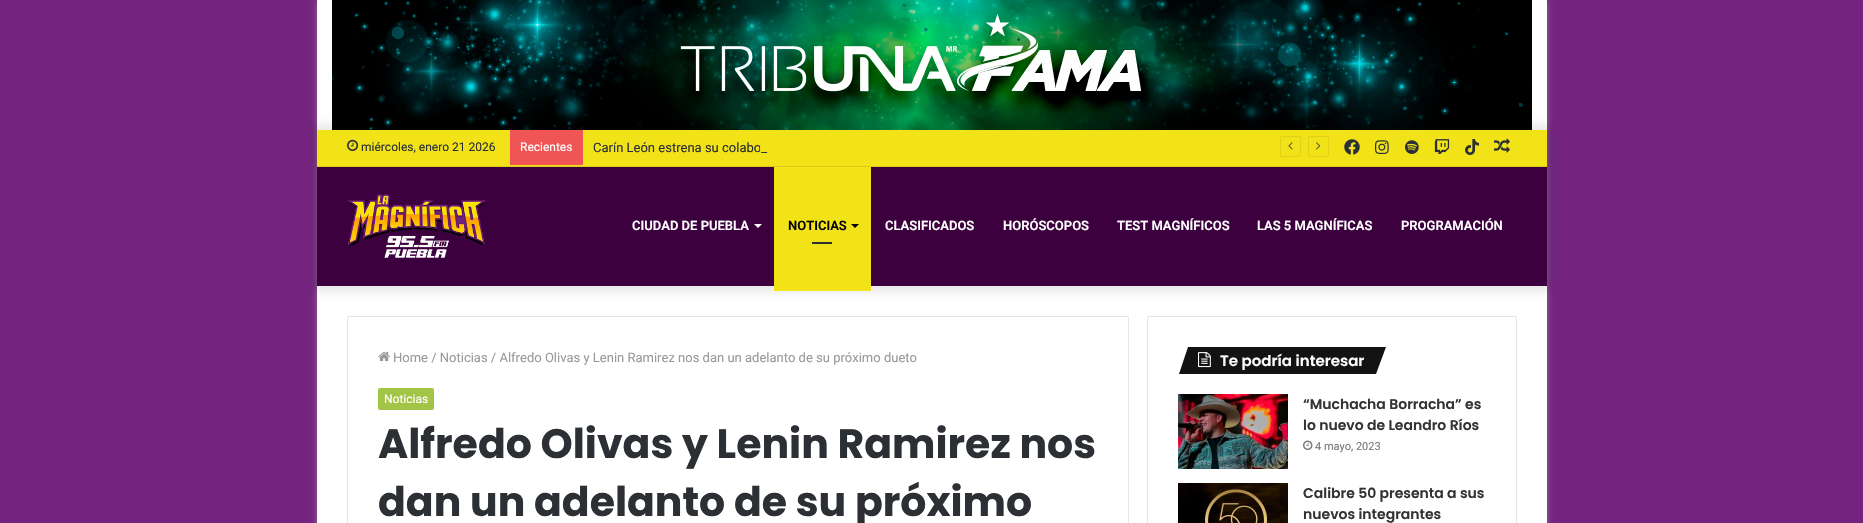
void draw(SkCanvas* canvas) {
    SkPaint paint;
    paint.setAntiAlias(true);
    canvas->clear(0xFF74237F);
    paint.setColor(0x80ABABAB);
    paint.setMaskFilter(SkMaskFilter::MakeBlur(kNormal_SkBlurStyle, 3.5f));
    canvas->drawRect(SkRect::MakeXYWH(317, 1, 1230, 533), paint);
    paint.setMaskFilter(nullptr);
    paint.setColor(0xFFFFFFFF);
    canvas->drawRect(SkRect::MakeXYWH(317, 0, 1230, 523), paint);
    canvas->drawImageRect(SkImages::DeferredFromEncodedData(SkData::MakeFromFileName("img1.png")), SkRect::MakeXYWH(332, 0, 1200, 130), SkSamplingOptions());
    paint.setColor(0x1A000000);
    paint.setMaskFilter(SkMaskFilter::MakeBlur(kNormal_SkBlurStyle, 5));
    canvas->drawRect(SkRect::MakeXYWH(312, 125, 1240, 166), paint);
    paint.setMaskFilter(nullptr);
    paint.setColor(0xFF3B003D);
    canvas->drawRect(SkRect::MakeXYWH(317, 167, 1230, 119), paint);
    paint.setColor(0xFFF1E318);
    canvas->drawRect(SkRect::MakeXYWH(317, 130, 1230, 36), paint);
    paint.setColor(0xFFD9CC16);
    canvas->drawRect(SkRect::MakeXYWH(317, 166, 1230, 1), paint);
    canvas->drawImageRect(SkImages::DeferredFromEncodedData(SkData::MakeFromFileName("img2.png")), SkRect::MakeXYWH(347, 139, 12, 12), SkSamplingOptions());
    SkFont font1(fontMgr->matchFamilyStyle("Roboto", SkFontStyle::Normal()), 12);
    font1.setSubpixel(true);
    paint.setColor(0xFF2C2F34);
    canvas->drawString("miércoles, enero 21 2026", 361, 151, font1, paint);
    paint.setColor(0xFFF05555);
    canvas->drawRect(SkRect::MakeXYWH(510, 130, 73, 35), paint);
    paint.setColor(0xFFFFFFFF);
    canvas->drawString("Recientes", 520, 151, font1, paint);
    SkFont font2(fontMgr->matchFamilyStyle("Roboto", SkFontStyle::Normal()), 13);
    font2.setSubpixel(true);
    paint.setColor(0xFF2C2F34);
    canvas->drawString("Carín León estrena su colabo_", 593, 152, font2, paint);
    paint.setColor(0xFFF1E318);
    canvas->drawRect(SkRect::MakeXYWH(760, 147, 1, 3), paint);
    paint.setStyle(SkPaint::kStroke_Style);
    paint.setStrokeWidth(1);
    paint.setColor(0xFFDED116);
    canvas->drawRoundRect(SkRect::MakeXYWH(1280.5f, 136.5f, 20, 20), 1.5f, 1.5f, paint);
    canvas->drawImageRect(SkImages::DeferredFromEncodedData(SkData::MakeFromFileName("img3.png")), SkRect::MakeXYWH(1288, 142, 5, 8), SkSamplingOptions());
    canvas->drawRoundRect(SkRect::MakeXYWH(1308.5f, 136.5f, 20, 20), 1.5f, 1.5f, paint);
    canvas->drawImageRect(SkImages::DeferredFromEncodedData(SkData::MakeFromFileName("img4.png")), SkRect::MakeXYWH(1316, 142, 5, 8), SkSamplingOptions());
    canvas->drawImageRect(SkImages::DeferredFromEncodedData(SkData::MakeFromFileName("img5.png")), SkRect::MakeXYWH(1344, 139, 16, 16), SkSamplingOptions());
    canvas->drawImageRect(SkImages::DeferredFromEncodedData(SkData::MakeFromFileName("img6.png")), SkRect::MakeXYWH(1375, 140, 14, 14), SkSamplingOptions());
    canvas->drawImageRect(SkImages::DeferredFromEncodedData(SkData::MakeFromFileName("img7.png")), SkRect::MakeXYWH(1405, 140, 14, 14), SkSamplingOptions());
    canvas->drawImageRect(SkImages::DeferredFromEncodedData(SkData::MakeFromFileName("img8.png")), SkRect::MakeXYWH(1434, 139, 16, 15), SkSamplingOptions());
    canvas->drawImageRect(SkImages::DeferredFromEncodedData(SkData::MakeFromFileName("img9.png")), SkRect::MakeXYWH(1465, 139, 14, 16), SkSamplingOptions());
    canvas->drawImageRect(SkImages::DeferredFromEncodedData(SkData::MakeFromFileName("img10.png")), SkRect::MakeXYWH(1494, 138, 16, 15), SkSamplingOptions());
    canvas->drawImageRect(SkImages::DeferredFromEncodedData(SkData::MakeFromFileName("img11.png")), SkRect::MakeXYWH(347, 194, 139, 64), SkSamplingOptions());
    SkFont font3(fontMgr->matchFamilyStyle("Roboto", SkFontStyle(600, SkFontStyle::kNormal_Width, SkFontStyle::kUpright_Slant)), 13);
    font3.setSubpixel(true);
    paint.setStyle(SkPaint::kFill_Style);
    paint.setColor(0xFFFFFFFF);
    canvas->drawString("CIUDAD DE PUEBLA", 632, 230, font3, paint);
    canvas->drawPath(SkPathBuilder().moveTo(754, 224).lineTo(762, 224).lineTo(758, 228).close().detach(), paint);
    paint.setColor(0xFFF1E318);
    canvas->drawRect(SkRect::MakeXYWH(774, 167, 97, 124), paint);
    paint.setColor(0xFF000000);
    canvas->drawString("NOTICIAS", 788, 230, font3, paint);
    canvas->drawPath(SkPathBuilder().moveTo(851, 224).lineTo(859, 224).lineTo(855, 228).close().detach(), paint);
    paint.setColor(0xFF2C2F34);
    canvas->drawRect(SkRect::MakeXYWH(812, 242, 20, 2), paint);
    paint.setColor(0xFFFFFFFF);
    canvas->drawString("CLASIFICADOS", 885, 230, font3, paint);
    canvas->drawString("HORÓSCOPOS", 1003, 230, font3, paint);
    canvas->drawString("TEST MAGNÍFICOS", 1117, 230, font3, paint);
    canvas->drawString("LAS 5 MAGNÍFICAS", 1257, 230, font3, paint);
    canvas->drawString("PROGRAMACIÓN", 1401, 230, font3, paint);
    paint.setStyle(SkPaint::kStroke_Style);
    paint.setColor(0xFFE6E6E6);
    canvas->drawRoundRect(SkRect::MakeXYWH(347.5f, 316.5f, 781, 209), 1.5f, 1.5f, paint);
    canvas->drawImageRect(SkImages::DeferredFromEncodedData(SkData::MakeFromFileName("img12.png")), SkRect::MakeXYWH(378, 351, 12, 11), SkSamplingOptions());
    paint.setStyle(SkPaint::kFill_Style);
    paint.setColor(0xFF999999);
    canvas->drawString("Home / Noticias / Alfredo Olivas y Lenin Ramirez nos dan un adelanto de su próximo dueto", 393, 362, font2, paint);
    paint.setColor(0xFFA2C547);
    canvas->drawRoundRect(SkRect::MakeXYWH(378, 388, 56, 22), 2, 2, paint);
    paint.setColor(0xFFFFFFFF);
    canvas->drawString("Noticias", 384, 403, font1, paint);
    SkFont font4(fontMgr->matchFamilyStyle("Poppins", SkFontStyle::Bold()), 41);
    font4.setSubpixel(true);
    paint.setColor(0xFF2C2F34);
    canvas->drawString("Alfredo Olivas y Lenin Ramirez nos", 378, 458, font4, paint);
    canvas->drawString("dan un adelanto de su próximo", 378, 516, font4, paint);
    paint.setStyle(SkPaint::kStroke_Style);
    paint.setColor(0xFFE6E6E6);
    canvas->drawRoundRect(SkRect::MakeXYWH(1147.5f, 316.5f, 369, 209), 1.5f, 1.5f, paint);
    paint.setStyle(SkPaint::kFill_Style);
    paint.setColor(0xFF131313);
    canvas->drawPath(SkPathBuilder().moveTo(1188, 347).lineTo(1386, 347).lineTo(1376, 374).lineTo(1179, 374).close().detach(), paint);
    canvas->drawImageRect(SkImages::DeferredFromEncodedData(SkData::MakeFromFileName("img13.png")), SkRect::MakeXYWH(1198, 352, 13, 16), SkSamplingOptions());
    SkFont font5(fontMgr->matchFamilyStyle("Poppins", SkFontStyle(600, SkFontStyle::kNormal_Width, SkFontStyle::kUpright_Slant)), 15);
    font5.setSubpixel(true);
    paint.setColor(0xFFFFFFFF);
    canvas->drawString("Te podría interesar", 1220, 366, font5, paint);
    canvas->drawImageRect(SkImages::DeferredFromEncodedData(SkData::MakeFromFileName("img14.png")), SkRect::MakeXYWH(1178, 394, 110, 75), SkSamplingOptions());
    SkFont font6(fontMgr->matchFamilyStyle("Poppins", SkFontStyle(600, SkFontStyle::kNormal_Width, SkFontStyle::kUpright_Slant)), 14);
    font6.setSubpixel(true);
    paint.setColor(0xFF333333);
    canvas->drawString("“Muchacha Borracha” es", 1303, 409, font6, paint);
    canvas->drawString("lo nuevo de Leandro Ríos", 1303, 430, font6, paint);
    canvas->drawImageRect(SkImages::DeferredFromEncodedData(SkData::MakeFromFileName("img15.png")), SkRect::MakeXYWH(1303, 440, 10, 10), SkSamplingOptions());
    SkFont font7(fontMgr->matchFamilyStyle("Roboto", SkFontStyle::Normal()), 11);
    font7.setSubpixel(true);
    paint.setColor(0xFF767676);
    canvas->drawString("4 mayo, 2023", 1315, 450, font7, paint);
    canvas->drawImageRect(SkImages::DeferredFromEncodedData(SkData::MakeFromFileName("img16.png")), SkRect::MakeXYWH(1178, 483, 110, 40), SkSamplingOptions());
    paint.setColor(0xFF333333);
    canvas->drawString("Calibre 50 presenta a sus", 1303, 498, font6, paint);
    canvas->drawString("nuevos integrantes", 1303, 519, font6, paint);
}
